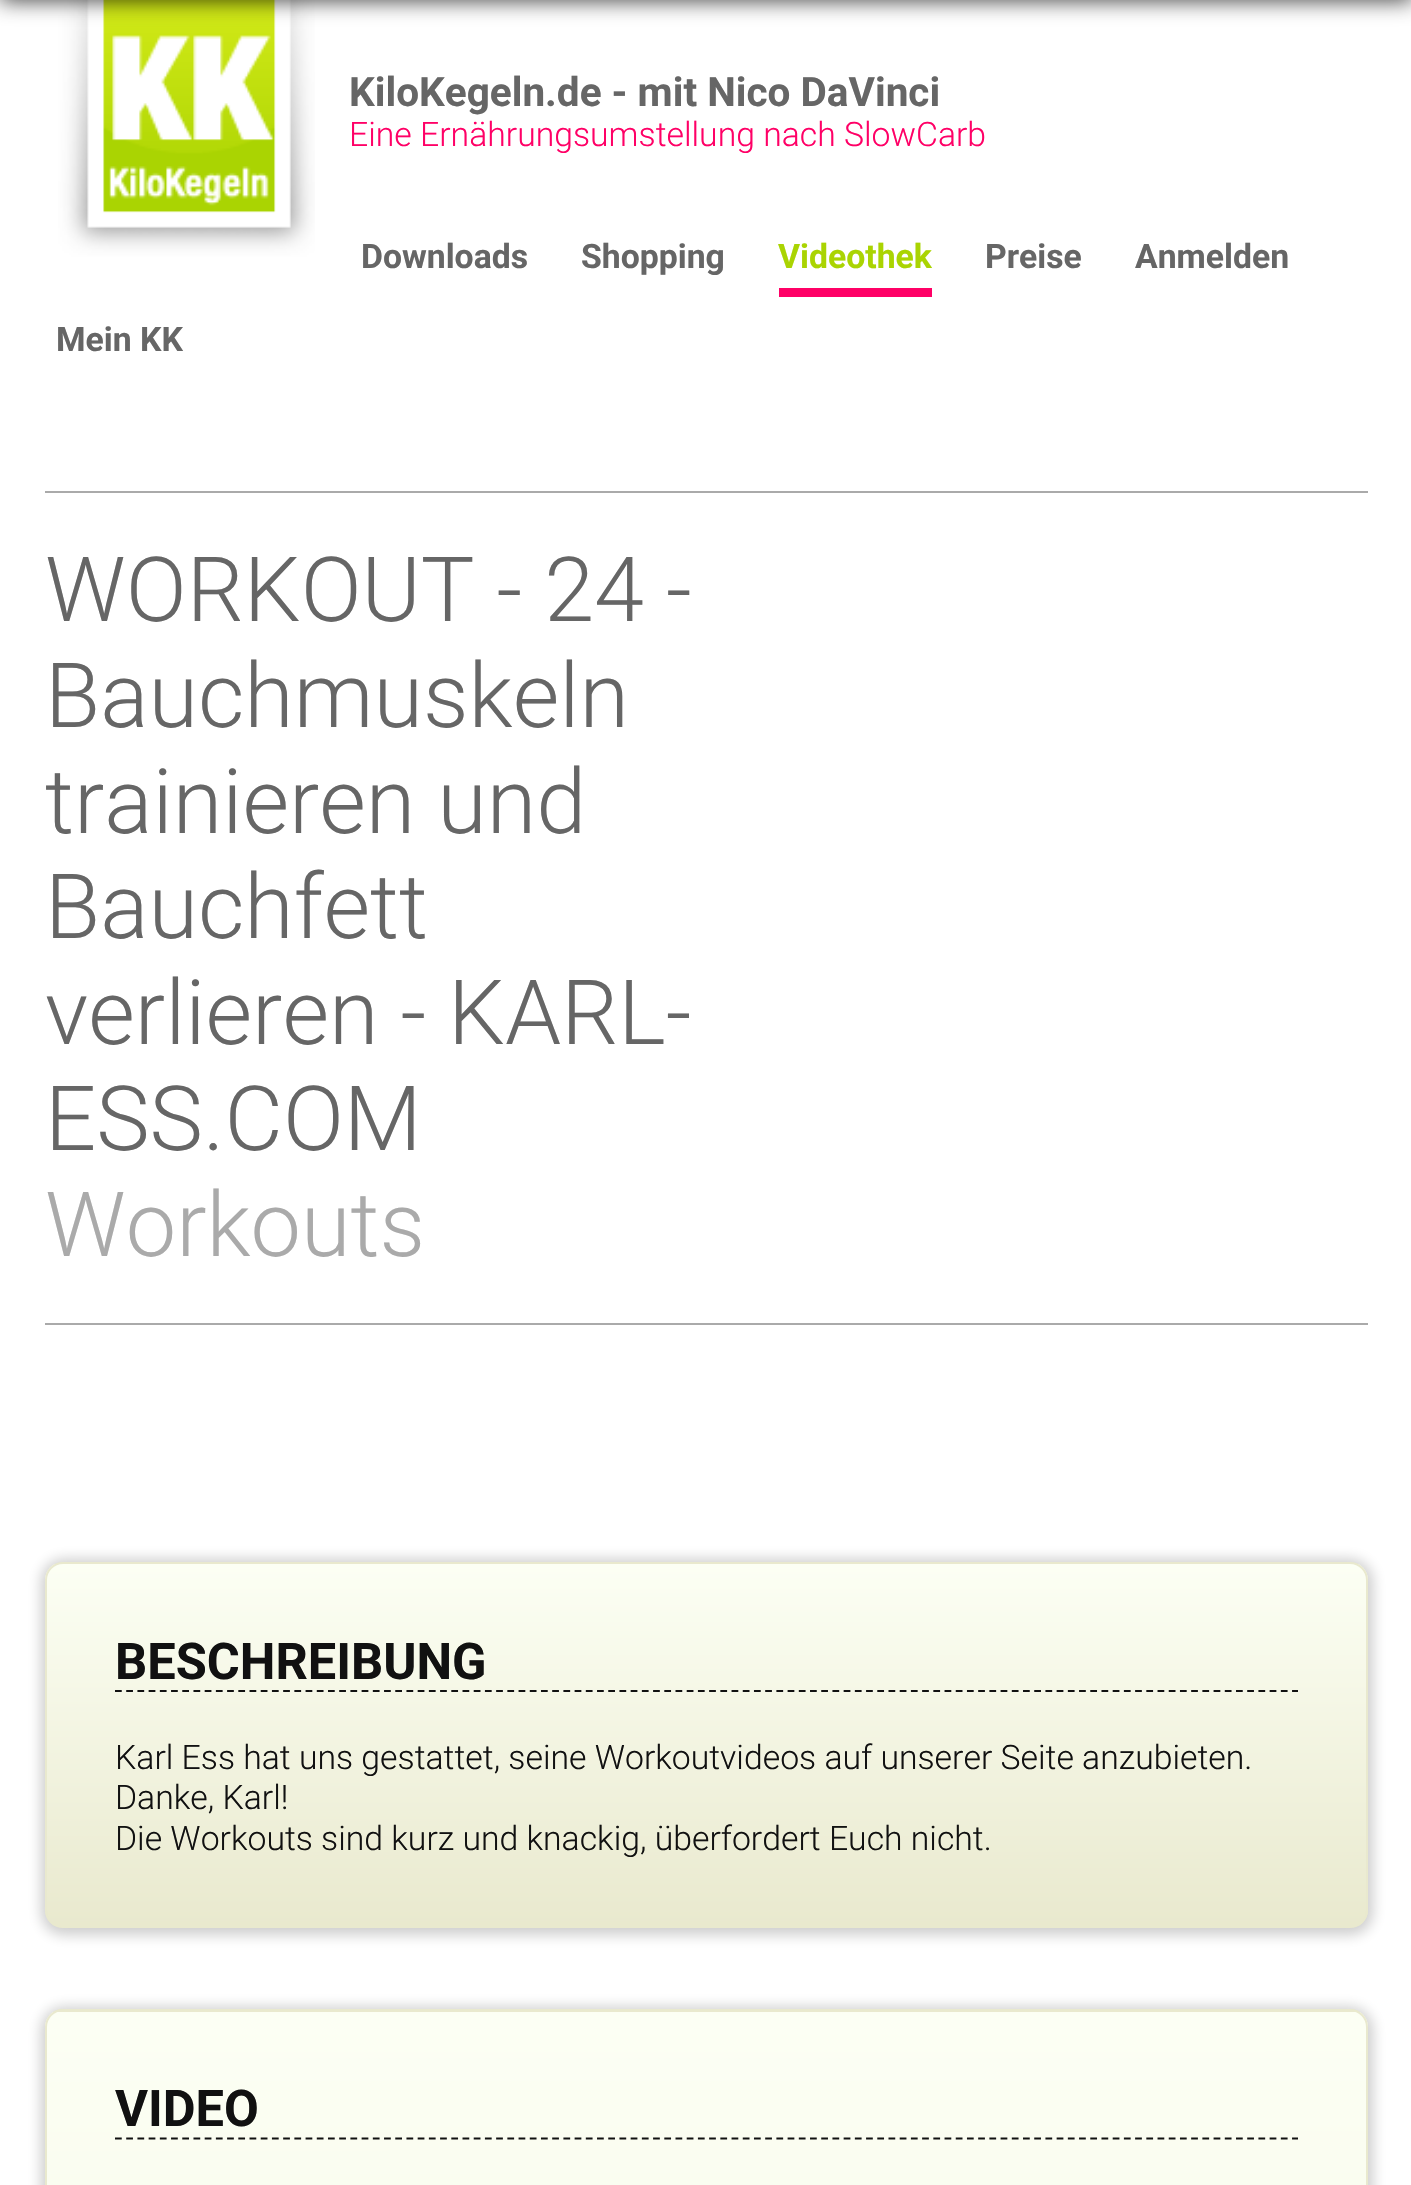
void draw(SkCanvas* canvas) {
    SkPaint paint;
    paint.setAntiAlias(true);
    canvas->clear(0xFFFFFFFF);
    canvas->drawImageRect(SkImages::DeferredFromEncodedData(SkData::MakeFromFileName("img1.png")), SkRect::MakeXYWH(58, 0, 257, 257), SkSamplingOptions());
    paint.setColor(0xCC000000);
    paint.setMaskFilter(SkMaskFilter::MakeBlur(kNormal_SkBlurStyle, 11));
    canvas->drawRect(SkRect::MakeXYWH(0, -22, 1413, 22), paint);
    paint.setMaskFilter(nullptr);
    SkFont font1(fontMgr->matchFamilyStyle("Roboto", SkFontStyle::Bold()), 40.5f);
    font1.setSubpixel(true);
    paint.setColor(0xFF666666);
    canvas->drawString("KiloKegeln.de - mit Nico DaVinci", 349, 106, font1, paint);
    SkFont font2(fontMgr->matchFamilyStyle("Roboto", SkFontStyle(300, SkFontStyle::kNormal_Width, SkFontStyle::kUpright_Slant)), 33.75f);
    font2.setSubpixel(true);
    paint.setColor(0xFFFF0066);
    canvas->drawString("Eine Ernährungsumstellung nach SlowCarb", 349, 146, font2, paint);
    SkFont font3(fontMgr->matchFamilyStyle("Roboto", SkFontStyle::Bold()), 33.75f);
    font3.setSubpixel(true);
    paint.setColor(0xFF666666);
    canvas->drawString("Downloads", 361, 268, font3, paint);
    canvas->drawString("Shopping", 581, 268, font3, paint);
    paint.setColor(0xFFFF0066);
    canvas->drawRect(SkRect::MakeXYWH(779, 288, 153, 9), paint);
    paint.setColor(0xFFAAD402);
    canvas->drawString("Videothek", 778, 268, font3, paint);
    paint.setColor(0xFF666666);
    canvas->drawString("Preise", 985, 268, font3, paint);
    canvas->drawString("Anmelden", 1135, 268, font3, paint);
    canvas->drawString("Mein KK", 56, 351, font3, paint);
    paint.setColor(0xFFAAAAAA);
    canvas->drawRect(SkRect::MakeXYWH(45, 491, 1323, 2), paint);
    canvas->drawRect(SkRect::MakeXYWH(45, 1323, 1323, 2), paint);
    SkFont font4(fontMgr->matchFamilyStyle("Roboto", SkFontStyle(300, SkFontStyle::kNormal_Width, SkFontStyle::kUpright_Slant)), 90);
    font4.setSubpixel(true);
    paint.setColor(0xFF666666);
    canvas->drawString("WORKOUT - 24 -", 45, 621, font4, paint);
    canvas->drawString("Bauchmuskeln", 45, 727, font4, paint);
    canvas->drawString("trainieren und", 45, 833, font4, paint);
    canvas->drawString("Bauchfett", 45, 938, font4, paint);
    canvas->drawString("verlieren - KARL-", 45, 1044, font4, paint);
    canvas->drawString("ESS.COM", 45, 1150, font4, paint);
    paint.setColor(0xFFAAAAAA);
    canvas->drawString("Workouts", 45, 1256, font4, paint);
    paint.setColor(0x33070707);
    paint.setMaskFilter(SkMaskFilter::MakeBlur(kNormal_SkBlurStyle, 7));
    canvas->drawRoundRect(SkRect::MakeXYWH(41, 1559, 1332, 376), 23, 23, paint);
    paint.setMaskFilter(nullptr);
    canvas->save();
    canvas->clipPath(SkPathBuilder().moveTo(63, 1562).lineTo(1350, 1562).cubicTo(1360, 1562, 1368, 1570, 1368, 1580).lineTo(1368, 1910).cubicTo(1368, 1920, 1360, 1928, 1350, 1928).lineTo(63, 1928).cubicTo(53, 1928, 45, 1920, 45, 1910).lineTo(45, 1580).cubicTo(45, 1570, 53, 1562, 63, 1562).close().detach(), true);
    {
        const SkColor colors[] = {0xFFFCFFF4, 0xFFE9E9CE};
        const float stops[] = {0, 1};
        const SkPoint ends[] = {{707, 1564}, {707, 1926}};
        paint.setShader(SkGradientShader::MakeLinear(ends, colors, stops, 2, SkTileMode::kClamp));
        paint.setAlpha(255);
    }
    canvas->drawRect(SkRect::MakeXYWH(45, 1564, 1323, 362), paint);
    canvas->restore();
    paint.setStyle(SkPaint::kStroke_Style);
    paint.setStrokeWidth(2);
    paint.setShader(nullptr);
    paint.setColor(0xFFE9E9CE);
    canvas->drawRoundRect(SkRect::MakeXYWH(46, 1563, 1321, 364), 17, 17, paint);
    paint.setStrokeWidth(2.2f);
    paint.setColor(0xFF111111);
    paint.setPathEffect(SkDashPathEffect::Make({{6.75f, 4.46f}}, 0));
    canvas->drawPath(SkPathBuilder().moveTo(115, 1691).lineTo(1298, 1691).detach(), paint);
    paint.setPathEffect(nullptr);
    SkFont font5(fontMgr->matchFamilyStyle("Roboto", SkFontStyle::Bold()), 50.5f);
    font5.setSubpixel(true);
    paint.setStyle(SkPaint::kFill_Style);
    canvas->drawString("BESCHREIBUNG", 115, 1679, font5, paint);
    canvas->drawString("Karl Ess hat uns gestattet, seine Workoutvideos auf unserer Seite anzubieten.", 115, 1769, font2, paint);
    canvas->drawString("Danke, Karl!", 115, 1809, font2, paint);
    canvas->drawString("Die Workouts sind kurz und knackig, überfordert Euch nicht.", 115, 1850, font2, paint);
    paint.setColor(0x33070707);
    paint.setMaskFilter(SkMaskFilter::MakeBlur(kNormal_SkBlurStyle, 7));
    canvas->drawRoundRect(SkRect::MakeXYWH(41, 2007, 1332, 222), 23, 23, paint);
    paint.setMaskFilter(nullptr);
    canvas->save();
    canvas->clipPath(SkPathBuilder().moveTo(63, 2009).lineTo(1350, 2009).cubicTo(1360, 2009, 1368, 2017, 1368, 2027).lineTo(1368, 3749).cubicTo(1368, 3759, 1360, 3767, 1350, 3767).lineTo(63, 3767).cubicTo(53, 3767, 45, 3759, 45, 3749).lineTo(45, 2027).cubicTo(45, 2017, 53, 2009, 63, 2009).close().detach(), true);
    {
        const SkColor colors[] = {0xFFFCFFF4, 0xFFE9E9CE};
        const float stops[] = {0, 1};
        const SkPoint ends[] = {{706, 259}, {707, 2012}};
        paint.setShader(SkGradientShader::MakeLinear(ends, colors, stops, 2, SkTileMode::kClamp));
        paint.setAlpha(255);
    }
    canvas->drawRect(SkRect::MakeXYWH(45, 2009, 1323, 3), paint);
    {
        const SkColor colors[] = {0xFFFCFFF4, 0xFFE9E9CE};
        const float stops[] = {0, 1};
        const SkPoint ends[] = {{706, 2012}, {707, 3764}};
        paint.setShader(SkGradientShader::MakeLinear(ends, colors, stops, 2, SkTileMode::kClamp));
        paint.setAlpha(255);
    }
    canvas->drawRect(SkRect::MakeXYWH(45, 2012, 1323, 173), paint);
    canvas->restore();
    paint.setStyle(SkPaint::kStroke_Style);
    paint.setStrokeWidth(2);
    paint.setShader(nullptr);
    paint.setColor(0xFFE9E9CE);
    canvas->drawRoundRect(SkRect::MakeXYWH(46, 2010, 1321, 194), 17, 17, paint);
    paint.setStrokeWidth(2.2f);
    paint.setColor(0xFF111111);
    paint.setPathEffect(SkDashPathEffect::Make({{6.75f, 4.46f}}, 0));
    canvas->drawPath(SkPathBuilder().moveTo(115, 2138.5f).lineTo(1298, 2138.5f).detach(), paint);
    paint.setPathEffect(nullptr);
    paint.setStyle(SkPaint::kFill_Style);
    canvas->drawString("VIDEO", 115, 2126, font5, paint);
}
